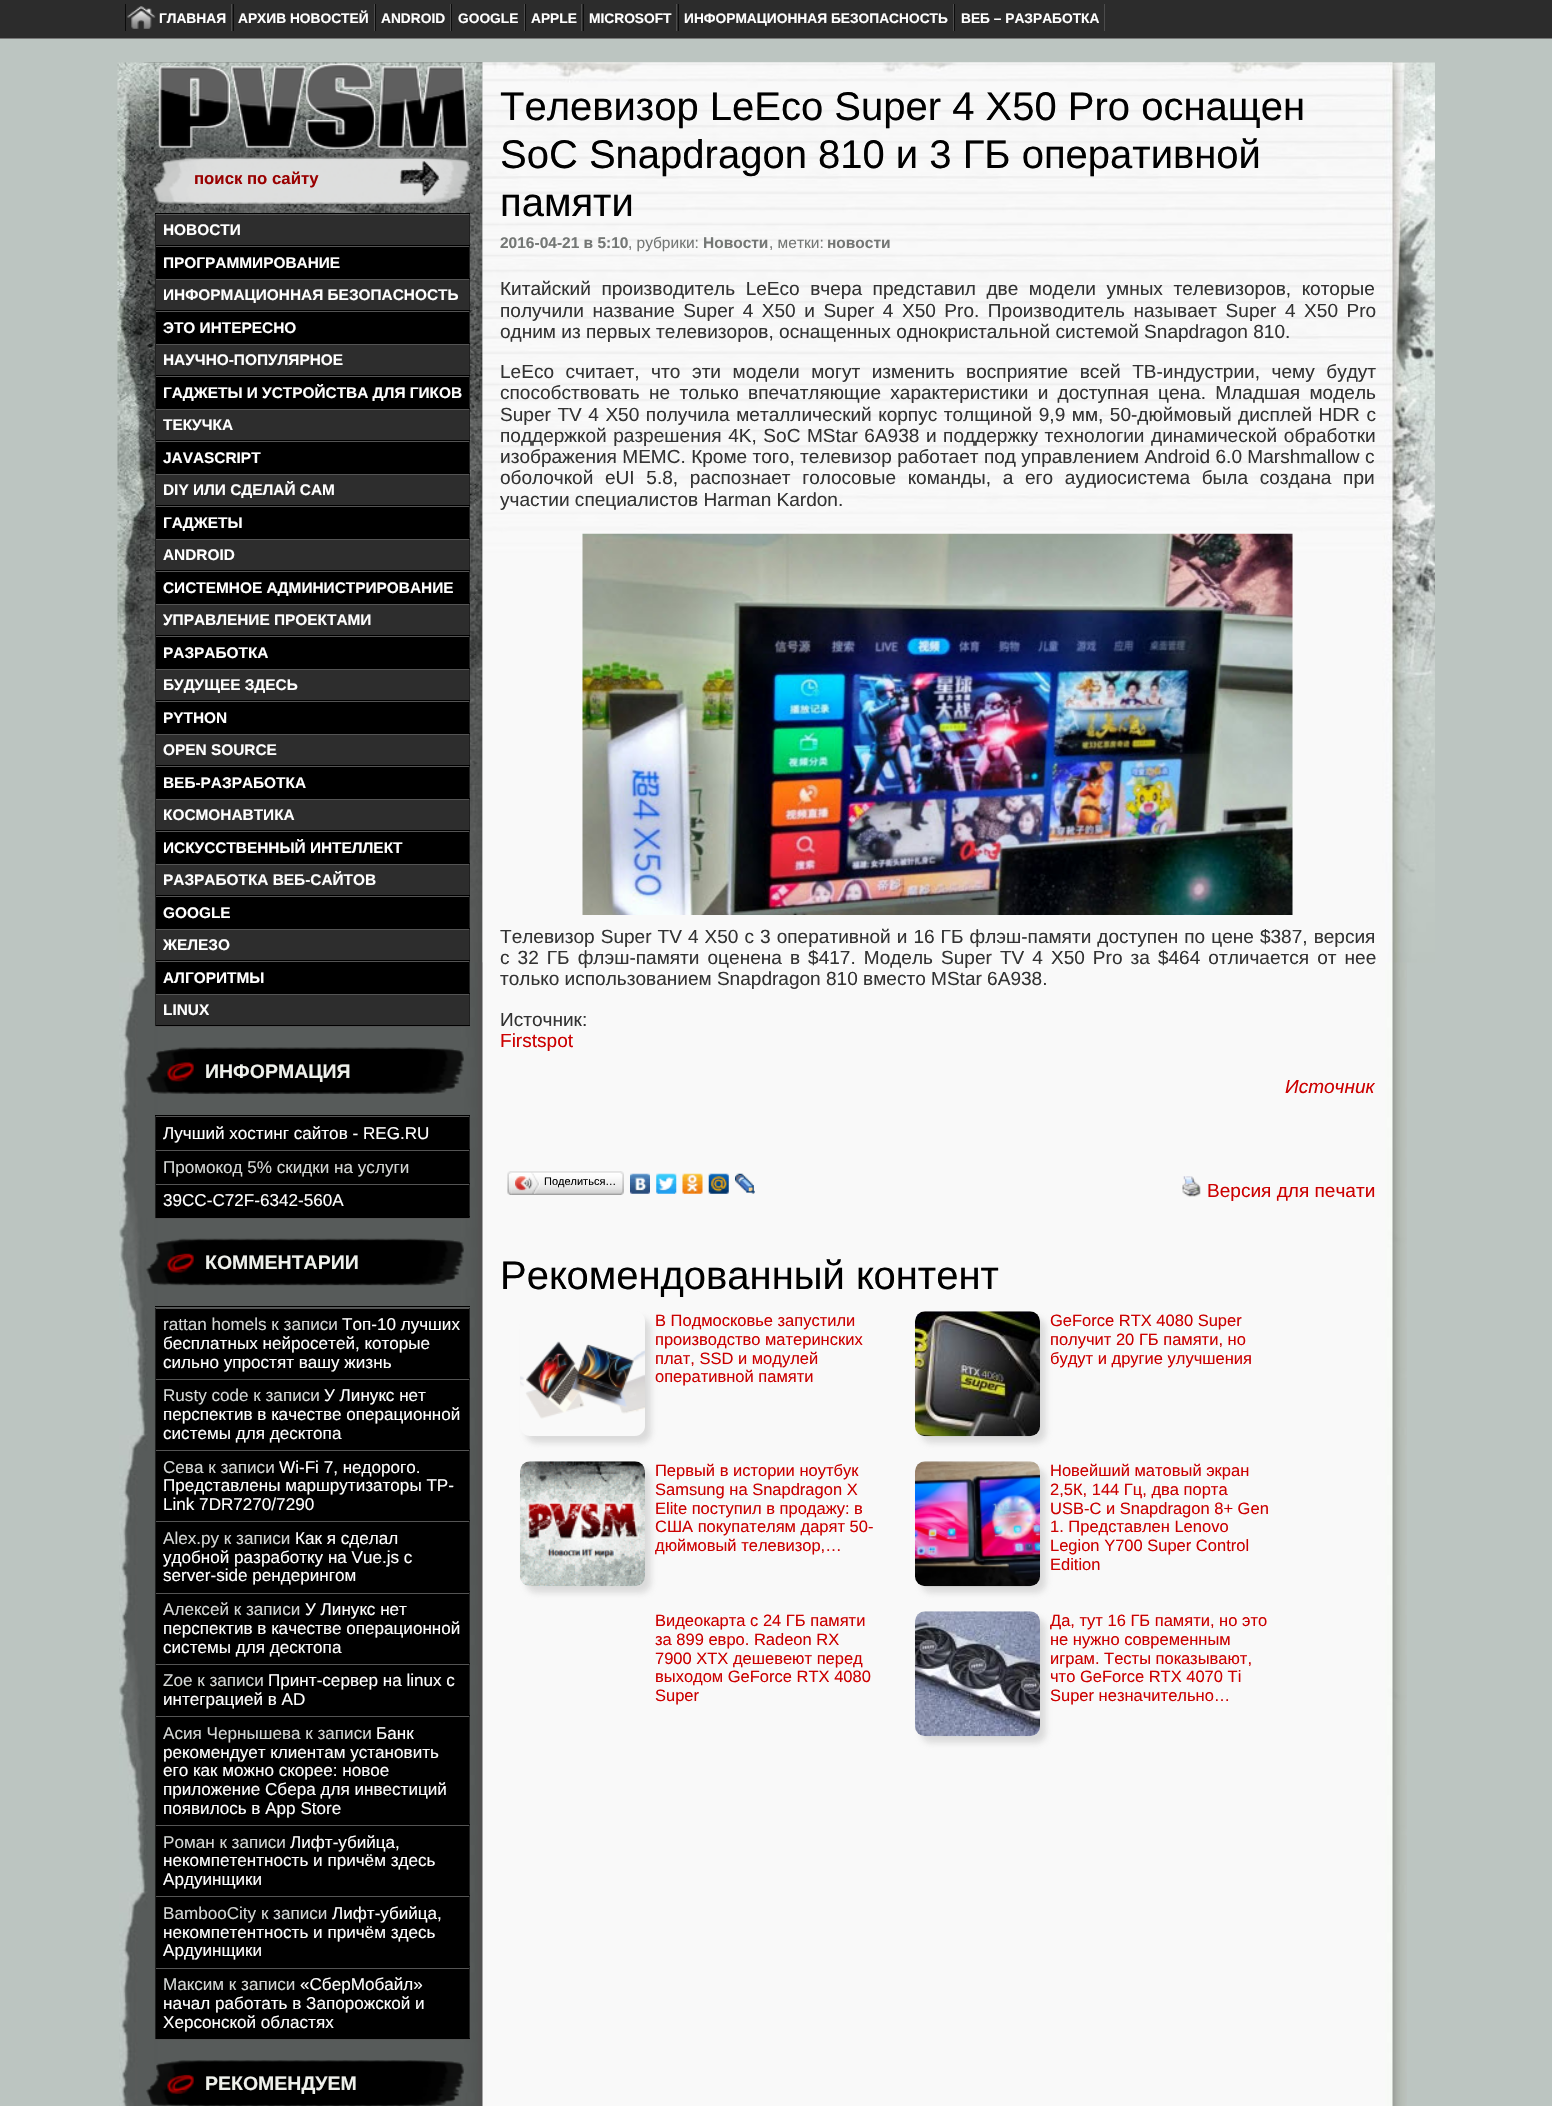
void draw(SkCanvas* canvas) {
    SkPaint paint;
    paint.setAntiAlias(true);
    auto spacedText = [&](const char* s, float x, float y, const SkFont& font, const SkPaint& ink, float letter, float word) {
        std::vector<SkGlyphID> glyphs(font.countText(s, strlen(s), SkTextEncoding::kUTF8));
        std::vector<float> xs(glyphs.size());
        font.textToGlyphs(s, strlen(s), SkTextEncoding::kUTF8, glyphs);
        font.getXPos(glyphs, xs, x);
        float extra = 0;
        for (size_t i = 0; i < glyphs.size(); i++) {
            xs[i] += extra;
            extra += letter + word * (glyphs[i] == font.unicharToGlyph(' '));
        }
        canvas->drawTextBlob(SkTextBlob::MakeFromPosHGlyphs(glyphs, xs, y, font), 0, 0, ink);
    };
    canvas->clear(0xFFBCC5C1);
    paint.setColor(0xFF2C2C2C);
    canvas->drawRect(SkRect::MakeXYWH(0, 0, 1552, 38), paint);
    paint.setColor(0xFF777777);
    canvas->drawRect(SkRect::MakeXYWH(0, 38, 1552, 1), paint);
    canvas->drawImageRect(SkImages::DeferredFromEncodedData(SkData::MakeFromFileName("img1.png")), SkRect::MakeXYWH(127, 6, 29, 23), SkSamplingOptions());
    paint.setColor(0xFF4C4C4C);
    canvas->drawRect(SkRect::MakeXYWH(231, 4, 1, 27), paint);
    paint.setColor(0xFF0C0C0C);
    canvas->drawRect(SkRect::MakeXYWH(125, 4, 1, 27), paint);
    SkFont font1(fontMgr->matchFamilyStyle("Liberation Sans", SkFontStyle::Bold()), 13.75f);
    font1.setSubpixel(true);
    paint.setColor(0xFFFFFFFF);
    canvas->drawString("ГЛАВНАЯ", 159, 23, font1, paint);
    paint.setColor(0xFF4C4C4C);
    canvas->drawRect(SkRect::MakeXYWH(374, 4, 1, 27), paint);
    paint.setColor(0xFF0C0C0C);
    canvas->drawRect(SkRect::MakeXYWH(233, 4, 1, 27), paint);
    paint.setColor(0xFFFFFFFF);
    canvas->drawString("АРХИВ НОВОСТЕЙ", 238, 23, font1, paint);
    paint.setColor(0xFF4C4C4C);
    canvas->drawRect(SkRect::MakeXYWH(450, 4, 1, 27), paint);
    paint.setColor(0xFF0C0C0C);
    canvas->drawRect(SkRect::MakeXYWH(375, 4, 1, 27), paint);
    paint.setColor(0xFFFFFFFF);
    canvas->drawString("ANDROID", 381, 23, font1, paint);
    paint.setColor(0xFF4C4C4C);
    canvas->drawRect(SkRect::MakeXYWH(524, 4, 1, 27), paint);
    paint.setColor(0xFF0C0C0C);
    canvas->drawRect(SkRect::MakeXYWH(451, 4, 1, 27), paint);
    paint.setColor(0xFFFFFFFF);
    canvas->drawString("GOOGLE", 458, 23, font1, paint);
    paint.setColor(0xFF4C4C4C);
    canvas->drawRect(SkRect::MakeXYWH(581, 4, 1, 27), paint);
    paint.setColor(0xFF0C0C0C);
    canvas->drawRect(SkRect::MakeXYWH(525, 4, 1, 27), paint);
    paint.setColor(0xFFFFFFFF);
    canvas->drawString("APPLE", 531, 23, font1, paint);
    paint.setColor(0xFF4C4C4C);
    canvas->drawRect(SkRect::MakeXYWH(676, 4, 1, 27), paint);
    paint.setColor(0xFF0C0C0C);
    canvas->drawRect(SkRect::MakeXYWH(583, 4, 1, 27), paint);
    paint.setColor(0xFFFFFFFF);
    canvas->drawString("MICROSOFT", 589, 23, font1, paint);
    paint.setColor(0xFF4C4C4C);
    canvas->drawRect(SkRect::MakeXYWH(953, 4, 1, 27), paint);
    paint.setColor(0xFF0C0C0C);
    canvas->drawRect(SkRect::MakeXYWH(678, 4, 1, 27), paint);
    paint.setColor(0xFFFFFFFF);
    canvas->drawString("ИНФОРМАЦИОННАЯ БЕЗОПАСНОСТЬ", 684, 23, font1, paint);
    paint.setColor(0xFF4C4C4C);
    canvas->drawRect(SkRect::MakeXYWH(1104, 4, 1, 27), paint);
    paint.setColor(0xFF0C0C0C);
    canvas->drawRect(SkRect::MakeXYWH(954, 4, 1, 27), paint);
    paint.setColor(0xFFFFFFFF);
    canvas->drawString("ВЕБ – РАЗРАБОТКА", 961, 23, font1, paint);
    canvas->drawImageRect(SkImages::DeferredFromEncodedData(SkData::MakeFromFileName("img2.png")), SkRect::MakeXYWH(119, 62, 1288, 2044), SkSamplingOptions());
    canvas->drawImageRect(SkImages::DeferredFromEncodedData(SkData::MakeFromFileName("img3.png")), SkRect::MakeXYWH(117, 62, 366, 901), SkSamplingOptions());
    canvas->drawImageRect(SkImages::DeferredFromEncodedData(SkData::MakeFromFileName("img4.png")), SkRect::MakeXYWH(158, 63, 310, 86), SkSamplingOptions());
    canvas->drawImageRect(SkImages::DeferredFromEncodedData(SkData::MakeFromFileName("img5.png")), SkRect::MakeXYWH(152, 157, 319, 47), SkSamplingOptions());
    SkFont font2(fontMgr->matchFamilyStyle("Liberation Sans", SkFontStyle::Bold()), 16.75f);
    font2.setSubpixel(true);
    paint.setColor(0xFF990000);
    canvas->drawString("поиск по сайту", 194, 184, font2, paint);
    canvas->drawImageRect(SkImages::DeferredFromEncodedData(SkData::MakeFromFileName("img6.png")), SkRect::MakeXYWH(399, 161, 41, 36), SkSamplingOptions());
    paint.setColor(0xFF000000);
    canvas->drawRect(SkRect::MakeXYWH(155, 213, 315, 1), paint);
    paint.setColor(0xFF545454);
    canvas->drawRect(SkRect::MakeXYWH(155, 1026, 315, 1), paint);
    paint.setColor(0xFF2D2D2D);
    canvas->drawRect(SkRect::MakeXYWH(156, 215, 313, 30), paint);
    paint.setColor(0xFF545454);
    canvas->drawRect(SkRect::MakeXYWH(155, 214, 315, 1), paint);
    paint.setColor(0xFF202020);
    canvas->drawRect(SkRect::MakeXYWH(469, 214, 1, 32), paint);
    paint.setColor(0xFF000000);
    canvas->drawRect(SkRect::MakeXYWH(155, 245, 315, 1), paint);
    paint.setColor(0xFF202020);
    canvas->drawRect(SkRect::MakeXYWH(155, 214, 1, 32), paint);
    SkFont font3(fontMgr->matchFamilyStyle("Liberation Sans", SkFontStyle::Bold()), 15.4f);
    font3.setSubpixel(true);
    paint.setColor(0xFFFFFFFF);
    canvas->drawString("НОВОСТИ", 163, 235, font3, paint);
    paint.setColor(0xFF000000);
    canvas->drawRect(SkRect::MakeXYWH(156, 247, 313, 31), paint);
    paint.setColor(0xFF545454);
    canvas->drawRect(SkRect::MakeXYWH(155, 246, 315, 1), paint);
    paint.setColor(0xFF202020);
    canvas->drawRect(SkRect::MakeXYWH(469, 246, 1, 33), paint);
    paint.setColor(0xFF000000);
    canvas->drawRect(SkRect::MakeXYWH(155, 278, 315, 1), paint);
    paint.setColor(0xFF202020);
    canvas->drawRect(SkRect::MakeXYWH(155, 246, 1, 33), paint);
    paint.setColor(0xFFFFFFFF);
    canvas->drawString("ПРОГРАММИРОВАНИЕ", 163, 268, font3, paint);
    paint.setColor(0xFF2D2D2D);
    canvas->drawRect(SkRect::MakeXYWH(156, 280, 313, 30), paint);
    paint.setColor(0xFF545454);
    canvas->drawRect(SkRect::MakeXYWH(155, 279, 315, 1), paint);
    paint.setColor(0xFF202020);
    canvas->drawRect(SkRect::MakeXYWH(469, 279, 1, 32), paint);
    paint.setColor(0xFF000000);
    canvas->drawRect(SkRect::MakeXYWH(155, 310, 315, 1), paint);
    paint.setColor(0xFF202020);
    canvas->drawRect(SkRect::MakeXYWH(155, 279, 1, 32), paint);
    paint.setColor(0xFFFFFFFF);
    canvas->drawString("ИНФОРМАЦИОННАЯ БЕЗОПАСНОСТЬ", 163, 300, font3, paint);
    paint.setColor(0xFF000000);
    canvas->drawRect(SkRect::MakeXYWH(156, 312, 313, 31), paint);
    paint.setColor(0xFF545454);
    canvas->drawRect(SkRect::MakeXYWH(155, 311, 315, 1), paint);
    paint.setColor(0xFF202020);
    canvas->drawRect(SkRect::MakeXYWH(469, 311, 1, 33), paint);
    paint.setColor(0xFF000000);
    canvas->drawRect(SkRect::MakeXYWH(155, 343, 315, 1), paint);
    paint.setColor(0xFF202020);
    canvas->drawRect(SkRect::MakeXYWH(155, 311, 1, 33), paint);
    paint.setColor(0xFFFFFFFF);
    canvas->drawString("ЭТО ИНТЕРЕСНО", 163, 333, font3, paint);
    paint.setColor(0xFF2D2D2D);
    canvas->drawRect(SkRect::MakeXYWH(156, 345, 313, 30), paint);
    paint.setColor(0xFF545454);
    canvas->drawRect(SkRect::MakeXYWH(155, 344, 315, 1), paint);
    paint.setColor(0xFF202020);
    canvas->drawRect(SkRect::MakeXYWH(469, 344, 1, 32), paint);
    paint.setColor(0xFF000000);
    canvas->drawRect(SkRect::MakeXYWH(155, 375, 315, 1), paint);
    paint.setColor(0xFF202020);
    canvas->drawRect(SkRect::MakeXYWH(155, 344, 1, 32), paint);
    paint.setColor(0xFFFFFFFF);
    canvas->drawString("НАУЧНО-ПОПУЛЯРНОЕ", 163, 365, font3, paint);
    paint.setColor(0xFF000000);
    canvas->drawRect(SkRect::MakeXYWH(156, 377, 313, 31), paint);
    paint.setColor(0xFF545454);
    canvas->drawRect(SkRect::MakeXYWH(155, 376, 315, 1), paint);
    paint.setColor(0xFF202020);
    canvas->drawRect(SkRect::MakeXYWH(469, 376, 1, 33), paint);
    paint.setColor(0xFF000000);
    canvas->drawRect(SkRect::MakeXYWH(155, 408, 315, 1), paint);
    paint.setColor(0xFF202020);
    canvas->drawRect(SkRect::MakeXYWH(155, 376, 1, 33), paint);
    paint.setColor(0xFFFFFFFF);
    canvas->drawString("ГАДЖЕТЫ И УСТРОЙСТВА ДЛЯ ГИКОВ", 163, 398, font3, paint);
    paint.setColor(0xFF2D2D2D);
    canvas->drawRect(SkRect::MakeXYWH(156, 410, 313, 30), paint);
    paint.setColor(0xFF545454);
    canvas->drawRect(SkRect::MakeXYWH(155, 409, 315, 1), paint);
    paint.setColor(0xFF202020);
    canvas->drawRect(SkRect::MakeXYWH(469, 409, 1, 32), paint);
    paint.setColor(0xFF000000);
    canvas->drawRect(SkRect::MakeXYWH(155, 440, 315, 1), paint);
    paint.setColor(0xFF202020);
    canvas->drawRect(SkRect::MakeXYWH(155, 409, 1, 32), paint);
    paint.setColor(0xFFFFFFFF);
    canvas->drawString("ТЕКУЧКА", 163, 430, font3, paint);
    paint.setColor(0xFF000000);
    canvas->drawRect(SkRect::MakeXYWH(156, 442, 313, 31), paint);
    paint.setColor(0xFF545454);
    canvas->drawRect(SkRect::MakeXYWH(155, 441, 315, 1), paint);
    paint.setColor(0xFF202020);
    canvas->drawRect(SkRect::MakeXYWH(469, 441, 1, 33), paint);
    paint.setColor(0xFF000000);
    canvas->drawRect(SkRect::MakeXYWH(155, 473, 315, 1), paint);
    paint.setColor(0xFF202020);
    canvas->drawRect(SkRect::MakeXYWH(155, 441, 1, 33), paint);
    paint.setColor(0xFFFFFFFF);
    canvas->drawString("JAVASCRIPT", 163, 463, font3, paint);
    paint.setColor(0xFF2D2D2D);
    canvas->drawRect(SkRect::MakeXYWH(156, 475, 313, 30), paint);
    paint.setColor(0xFF545454);
    canvas->drawRect(SkRect::MakeXYWH(155, 474, 315, 1), paint);
    paint.setColor(0xFF202020);
    canvas->drawRect(SkRect::MakeXYWH(469, 474, 1, 32), paint);
    paint.setColor(0xFF000000);
    canvas->drawRect(SkRect::MakeXYWH(155, 505, 315, 1), paint);
    paint.setColor(0xFF202020);
    canvas->drawRect(SkRect::MakeXYWH(155, 474, 1, 32), paint);
    paint.setColor(0xFFFFFFFF);
    canvas->drawString("DIY ИЛИ СДЕЛАЙ САМ", 163, 495, font3, paint);
    paint.setColor(0xFF000000);
    canvas->drawRect(SkRect::MakeXYWH(156, 507, 313, 31), paint);
    paint.setColor(0xFF545454);
    canvas->drawRect(SkRect::MakeXYWH(155, 506, 315, 1), paint);
    paint.setColor(0xFF202020);
    canvas->drawRect(SkRect::MakeXYWH(469, 506, 1, 33), paint);
    paint.setColor(0xFF000000);
    canvas->drawRect(SkRect::MakeXYWH(155, 538, 315, 1), paint);
    paint.setColor(0xFF202020);
    canvas->drawRect(SkRect::MakeXYWH(155, 506, 1, 33), paint);
    paint.setColor(0xFFFFFFFF);
    canvas->drawString("ГАДЖЕТЫ", 163, 528, font3, paint);
    paint.setColor(0xFF2D2D2D);
    canvas->drawRect(SkRect::MakeXYWH(156, 540, 313, 30), paint);
    paint.setColor(0xFF545454);
    canvas->drawRect(SkRect::MakeXYWH(155, 539, 315, 1), paint);
    paint.setColor(0xFF202020);
    canvas->drawRect(SkRect::MakeXYWH(469, 539, 1, 32), paint);
    paint.setColor(0xFF000000);
    canvas->drawRect(SkRect::MakeXYWH(155, 570, 315, 1), paint);
    paint.setColor(0xFF202020);
    canvas->drawRect(SkRect::MakeXYWH(155, 539, 1, 32), paint);
    paint.setColor(0xFFFFFFFF);
    canvas->drawString("ANDROID", 163, 560, font3, paint);
    paint.setColor(0xFF000000);
    canvas->drawRect(SkRect::MakeXYWH(156, 572, 313, 31), paint);
    paint.setColor(0xFF545454);
    canvas->drawRect(SkRect::MakeXYWH(155, 571, 315, 1), paint);
    paint.setColor(0xFF202020);
    canvas->drawRect(SkRect::MakeXYWH(469, 571, 1, 33), paint);
    paint.setColor(0xFF000000);
    canvas->drawRect(SkRect::MakeXYWH(155, 603, 315, 1), paint);
    paint.setColor(0xFF202020);
    canvas->drawRect(SkRect::MakeXYWH(155, 571, 1, 33), paint);
    paint.setColor(0xFFFFFFFF);
    canvas->drawString("СИСТЕМНОЕ АДМИНИСТРИРОВАНИЕ", 163, 593, font3, paint);
    paint.setColor(0xFF2D2D2D);
    canvas->drawRect(SkRect::MakeXYWH(156, 605, 313, 30), paint);
    paint.setColor(0xFF545454);
    canvas->drawRect(SkRect::MakeXYWH(155, 604, 315, 1), paint);
    paint.setColor(0xFF202020);
    canvas->drawRect(SkRect::MakeXYWH(469, 604, 1, 32), paint);
    paint.setColor(0xFF000000);
    canvas->drawRect(SkRect::MakeXYWH(155, 635, 315, 1), paint);
    paint.setColor(0xFF202020);
    canvas->drawRect(SkRect::MakeXYWH(155, 604, 1, 32), paint);
    paint.setColor(0xFFFFFFFF);
    canvas->drawString("УПРАВЛЕНИЕ ПРОЕКТАМИ", 163, 625, font3, paint);
    paint.setColor(0xFF000000);
    canvas->drawRect(SkRect::MakeXYWH(156, 637, 313, 31), paint);
    paint.setColor(0xFF545454);
    canvas->drawRect(SkRect::MakeXYWH(155, 636, 315, 1), paint);
    paint.setColor(0xFF202020);
    canvas->drawRect(SkRect::MakeXYWH(469, 636, 1, 33), paint);
    paint.setColor(0xFF000000);
    canvas->drawRect(SkRect::MakeXYWH(155, 668, 315, 1), paint);
    paint.setColor(0xFF202020);
    canvas->drawRect(SkRect::MakeXYWH(155, 636, 1, 33), paint);
    paint.setColor(0xFFFFFFFF);
    canvas->drawString("РАЗРАБОТКА", 163, 658, font3, paint);
    paint.setColor(0xFF2D2D2D);
    canvas->drawRect(SkRect::MakeXYWH(156, 670, 313, 30), paint);
    paint.setColor(0xFF545454);
    canvas->drawRect(SkRect::MakeXYWH(155, 669, 315, 1), paint);
    paint.setColor(0xFF202020);
    canvas->drawRect(SkRect::MakeXYWH(469, 669, 1, 32), paint);
    paint.setColor(0xFF000000);
    canvas->drawRect(SkRect::MakeXYWH(155, 700, 315, 1), paint);
    paint.setColor(0xFF202020);
    canvas->drawRect(SkRect::MakeXYWH(155, 669, 1, 32), paint);
    paint.setColor(0xFFFFFFFF);
    canvas->drawString("БУДУЩЕЕ ЗДЕСЬ", 163, 690, font3, paint);
    paint.setColor(0xFF000000);
    canvas->drawRect(SkRect::MakeXYWH(156, 702, 313, 31), paint);
    paint.setColor(0xFF545454);
    canvas->drawRect(SkRect::MakeXYWH(155, 701, 315, 1), paint);
    paint.setColor(0xFF202020);
    canvas->drawRect(SkRect::MakeXYWH(469, 701, 1, 33), paint);
    paint.setColor(0xFF000000);
    canvas->drawRect(SkRect::MakeXYWH(155, 733, 315, 1), paint);
    paint.setColor(0xFF202020);
    canvas->drawRect(SkRect::MakeXYWH(155, 701, 1, 33), paint);
    paint.setColor(0xFFFFFFFF);
    canvas->drawString("PYTHON", 163, 723, font3, paint);
    paint.setColor(0xFF2D2D2D);
    canvas->drawRect(SkRect::MakeXYWH(156, 735, 313, 30), paint);
    paint.setColor(0xFF545454);
    canvas->drawRect(SkRect::MakeXYWH(155, 734, 315, 1), paint);
    paint.setColor(0xFF202020);
    canvas->drawRect(SkRect::MakeXYWH(469, 734, 1, 32), paint);
    paint.setColor(0xFF000000);
    canvas->drawRect(SkRect::MakeXYWH(155, 765, 315, 1), paint);
    paint.setColor(0xFF202020);
    canvas->drawRect(SkRect::MakeXYWH(155, 734, 1, 32), paint);
    paint.setColor(0xFFFFFFFF);
    canvas->drawString("OPEN SOURCE", 163, 755, font3, paint);
    paint.setColor(0xFF000000);
    canvas->drawRect(SkRect::MakeXYWH(156, 767, 313, 31), paint);
    paint.setColor(0xFF545454);
    canvas->drawRect(SkRect::MakeXYWH(155, 766, 315, 1), paint);
    paint.setColor(0xFF202020);
    canvas->drawRect(SkRect::MakeXYWH(469, 766, 1, 33), paint);
    paint.setColor(0xFF000000);
    canvas->drawRect(SkRect::MakeXYWH(155, 798, 315, 1), paint);
    paint.setColor(0xFF202020);
    canvas->drawRect(SkRect::MakeXYWH(155, 766, 1, 33), paint);
    paint.setColor(0xFFFFFFFF);
    canvas->drawString("ВЕБ-РАЗРАБОТКА", 163, 788, font3, paint);
    paint.setColor(0xFF2D2D2D);
    canvas->drawRect(SkRect::MakeXYWH(156, 800, 313, 30), paint);
    paint.setColor(0xFF545454);
    canvas->drawRect(SkRect::MakeXYWH(155, 799, 315, 1), paint);
    paint.setColor(0xFF202020);
    canvas->drawRect(SkRect::MakeXYWH(469, 799, 1, 32), paint);
    paint.setColor(0xFF000000);
    canvas->drawRect(SkRect::MakeXYWH(155, 830, 315, 1), paint);
    paint.setColor(0xFF202020);
    canvas->drawRect(SkRect::MakeXYWH(155, 799, 1, 32), paint);
    paint.setColor(0xFFFFFFFF);
    canvas->drawString("КОСМОНАВТИКА", 163, 820, font3, paint);
    paint.setColor(0xFF000000);
    canvas->drawRect(SkRect::MakeXYWH(156, 832, 313, 31), paint);
    paint.setColor(0xFF545454);
    canvas->drawRect(SkRect::MakeXYWH(155, 831, 315, 1), paint);
    paint.setColor(0xFF202020);
    canvas->drawRect(SkRect::MakeXYWH(469, 831, 1, 33), paint);
    paint.setColor(0xFF000000);
    canvas->drawRect(SkRect::MakeXYWH(155, 863, 315, 1), paint);
    paint.setColor(0xFF202020);
    canvas->drawRect(SkRect::MakeXYWH(155, 831, 1, 33), paint);
    paint.setColor(0xFFFFFFFF);
    canvas->drawString("ИСКУССТВЕННЫЙ ИНТЕЛЛЕКТ", 163, 853, font3, paint);
    paint.setColor(0xFF2D2D2D);
    canvas->drawRect(SkRect::MakeXYWH(156, 865, 313, 30), paint);
    paint.setColor(0xFF545454);
    canvas->drawRect(SkRect::MakeXYWH(155, 864, 315, 1), paint);
    paint.setColor(0xFF202020);
    canvas->drawRect(SkRect::MakeXYWH(469, 864, 1, 32), paint);
    paint.setColor(0xFF000000);
    canvas->drawRect(SkRect::MakeXYWH(155, 895, 315, 1), paint);
    paint.setColor(0xFF202020);
    canvas->drawRect(SkRect::MakeXYWH(155, 864, 1, 32), paint);
    paint.setColor(0xFFFFFFFF);
    canvas->drawString("РАЗРАБОТКА ВЕБ-САЙТОВ", 163, 885, font3, paint);
    paint.setColor(0xFF000000);
    canvas->drawRect(SkRect::MakeXYWH(156, 897, 313, 31), paint);
    paint.setColor(0xFF545454);
    canvas->drawRect(SkRect::MakeXYWH(155, 896, 315, 1), paint);
    paint.setColor(0xFF202020);
    canvas->drawRect(SkRect::MakeXYWH(469, 896, 1, 33), paint);
    paint.setColor(0xFF000000);
    canvas->drawRect(SkRect::MakeXYWH(155, 928, 315, 1), paint);
    paint.setColor(0xFF202020);
    canvas->drawRect(SkRect::MakeXYWH(155, 896, 1, 33), paint);
    paint.setColor(0xFFFFFFFF);
    canvas->drawString("GOOGLE", 163, 918, font3, paint);
    paint.setColor(0xFF2D2D2D);
    canvas->drawRect(SkRect::MakeXYWH(156, 930, 313, 30), paint);
    paint.setColor(0xFF545454);
    canvas->drawRect(SkRect::MakeXYWH(155, 929, 315, 1), paint);
    paint.setColor(0xFF202020);
    canvas->drawRect(SkRect::MakeXYWH(469, 929, 1, 32), paint);
    paint.setColor(0xFF000000);
    canvas->drawRect(SkRect::MakeXYWH(155, 960, 315, 1), paint);
    paint.setColor(0xFF202020);
    canvas->drawRect(SkRect::MakeXYWH(155, 929, 1, 32), paint);
    paint.setColor(0xFFFFFFFF);
    canvas->drawString("ЖЕЛЕЗО", 163, 950, font3, paint);
    paint.setColor(0xFF000000);
    canvas->drawRect(SkRect::MakeXYWH(156, 962, 313, 31), paint);
    paint.setColor(0xFF545454);
    canvas->drawRect(SkRect::MakeXYWH(155, 961, 315, 1), paint);
    paint.setColor(0xFF202020);
    canvas->drawRect(SkRect::MakeXYWH(469, 961, 1, 33), paint);
    paint.setColor(0xFF000000);
    canvas->drawRect(SkRect::MakeXYWH(155, 993, 315, 1), paint);
    paint.setColor(0xFF202020);
    canvas->drawRect(SkRect::MakeXYWH(155, 961, 1, 33), paint);
    paint.setColor(0xFFFFFFFF);
    canvas->drawString("АЛГОРИТМЫ", 163, 983, font3, paint);
    paint.setColor(0xFF2D2D2D);
    canvas->drawRect(SkRect::MakeXYWH(156, 995, 313, 30), paint);
    paint.setColor(0xFF545454);
    canvas->drawRect(SkRect::MakeXYWH(155, 994, 315, 1), paint);
    paint.setColor(0xFF202020);
    canvas->drawRect(SkRect::MakeXYWH(469, 994, 1, 32), paint);
    paint.setColor(0xFF000000);
    canvas->drawRect(SkRect::MakeXYWH(155, 1025, 315, 1), paint);
    paint.setColor(0xFF202020);
    canvas->drawRect(SkRect::MakeXYWH(155, 994, 1, 32), paint);
    paint.setColor(0xFFFFFFFF);
    canvas->drawString("LINUX", 163, 1015, font3, paint);
    canvas->drawImageRect(SkImages::DeferredFromEncodedData(SkData::MakeFromFileName("img7.png")), SkRect::MakeXYWH(146, 1047, 318, 47), SkSamplingOptions());
    SkFont font4(fontMgr->matchFamilyStyle("Liberation Sans", SkFontStyle::Bold()), 19.5f);
    font4.setSubpixel(true);
    paint.setColor(0xFFEEF0EB);
    canvas->drawString("ИНФОРМАЦИЯ", 205, 1078, font4, paint);
    paint.setColor(0xFF000000);
    canvas->drawRect(SkRect::MakeXYWH(155, 1115, 315, 1), paint);
    paint.setColor(0xFF545454);
    canvas->drawRect(SkRect::MakeXYWH(155, 1218, 315, 1), paint);
    paint.setColor(0xFF000000);
    canvas->drawRect(SkRect::MakeXYWH(156, 1117, 313, 32), paint);
    paint.setColor(0xFF545454);
    canvas->drawRect(SkRect::MakeXYWH(155, 1116, 315, 1), paint);
    paint.setColor(0xFF202020);
    canvas->drawRect(SkRect::MakeXYWH(469, 1116, 1, 34), paint);
    paint.setColor(0xFF000000);
    canvas->drawRect(SkRect::MakeXYWH(155, 1149, 315, 1), paint);
    paint.setColor(0xFF202020);
    canvas->drawRect(SkRect::MakeXYWH(155, 1116, 1, 34), paint);
    SkFont font5(fontMgr->matchFamilyStyle("Liberation Sans", SkFontStyle::Normal()), 17.1f);
    font5.setSubpixel(true);
    paint.setColor(0xFFFFFFFF);
    canvas->drawString("Лучший хостинг сайтов - REG.RU", 163, 1139, font5, paint);
    paint.setColor(0xFF000000);
    canvas->drawRect(SkRect::MakeXYWH(156, 1151, 313, 32), paint);
    paint.setColor(0xFF545454);
    canvas->drawRect(SkRect::MakeXYWH(155, 1150, 315, 1), paint);
    paint.setColor(0xFF202020);
    canvas->drawRect(SkRect::MakeXYWH(469, 1150, 1, 34), paint);
    paint.setColor(0xFF000000);
    canvas->drawRect(SkRect::MakeXYWH(155, 1183, 315, 1), paint);
    paint.setColor(0xFF202020);
    canvas->drawRect(SkRect::MakeXYWH(155, 1150, 1, 34), paint);
    paint.setColor(0xFFD4D7D5);
    canvas->drawString("Промокод 5% скидки на услуги", 163, 1173, font5, paint);
    paint.setColor(0xFF000000);
    canvas->drawRect(SkRect::MakeXYWH(156, 1185, 313, 33), paint);
    paint.setColor(0xFF545454);
    canvas->drawRect(SkRect::MakeXYWH(155, 1184, 315, 1), paint);
    paint.setColor(0xFF202020);
    canvas->drawRect(SkRect::MakeXYWH(469, 1184, 1, 34), paint);
    paint.setColor(0xFF000000);
    canvas->drawRect(SkRect::MakeXYWH(155, 1216, 315, 1), paint);
    paint.setColor(0xFF202020);
    canvas->drawRect(SkRect::MakeXYWH(155, 1184, 1, 34), paint);
    paint.setColor(0xFFFFFFFF);
    canvas->drawString("39CC-C72F-6342-560A", 163, 1206, font5, paint);
    canvas->drawImageRect(SkImages::DeferredFromEncodedData(SkData::MakeFromFileName("img8.png")), SkRect::MakeXYWH(146, 1238, 319, 48), SkSamplingOptions());
    paint.setColor(0xFFEEF0EB);
    canvas->drawString("КОММЕНТАРИИ", 205, 1269, font4, paint);
    paint.setColor(0xFF000000);
    canvas->drawRect(SkRect::MakeXYWH(155, 1306, 315, 1), paint);
    paint.setColor(0xFF545454);
    canvas->drawRect(SkRect::MakeXYWH(155, 2039, 315, 1), paint);
    paint.setColor(0xFF000000);
    canvas->drawRect(SkRect::MakeXYWH(156, 1309, 313, 69), paint);
    paint.setColor(0xFF545454);
    canvas->drawRect(SkRect::MakeXYWH(155, 1308, 315, 1), paint);
    paint.setColor(0xFF202020);
    canvas->drawRect(SkRect::MakeXYWH(469, 1308, 1, 71), paint);
    paint.setColor(0xFF000000);
    canvas->drawRect(SkRect::MakeXYWH(155, 1378, 315, 1), paint);
    paint.setColor(0xFF202020);
    canvas->drawRect(SkRect::MakeXYWH(155, 1308, 1, 71), paint);
    paint.setColor(0xFFD4D7D5);
    canvas->drawString("rattan homels к записи", 163, 1330, font5, paint);
    paint.setColor(0xFFFFFFFF);
    canvas->drawString("Топ-10 лучших", 342, 1330, font5, paint);
    canvas->drawString("бесплатных нейросетей, которые", 163, 1349, font5, paint);
    canvas->drawString("сильно упростят вашу жизнь", 163, 1368, font5, paint);
    paint.setColor(0xFF000000);
    canvas->drawRect(SkRect::MakeXYWH(156, 1380, 313, 69), paint);
    paint.setColor(0xFF545454);
    canvas->drawRect(SkRect::MakeXYWH(155, 1379, 315, 1), paint);
    paint.setColor(0xFF202020);
    canvas->drawRect(SkRect::MakeXYWH(469, 1379, 1, 71), paint);
    paint.setColor(0xFF000000);
    canvas->drawRect(SkRect::MakeXYWH(155, 1449, 315, 1), paint);
    paint.setColor(0xFF202020);
    canvas->drawRect(SkRect::MakeXYWH(155, 1379, 1, 71), paint);
    paint.setColor(0xFFD4D7D5);
    canvas->drawString("Rusty code к записи", 163, 1401, font5, paint);
    paint.setColor(0xFFFFFFFF);
    canvas->drawString("У Линукс нет", 324, 1401, font5, paint);
    canvas->drawString("перспектив в качестве операционной", 163, 1420, font5, paint);
    canvas->drawString("системы для десктопа", 163, 1439, font5, paint);
    paint.setColor(0xFF000000);
    canvas->drawRect(SkRect::MakeXYWH(156, 1451, 313, 69), paint);
    paint.setColor(0xFF545454);
    canvas->drawRect(SkRect::MakeXYWH(155, 1450, 315, 1), paint);
    paint.setColor(0xFF202020);
    canvas->drawRect(SkRect::MakeXYWH(469, 1450, 1, 71), paint);
    paint.setColor(0xFF000000);
    canvas->drawRect(SkRect::MakeXYWH(155, 1520, 315, 1), paint);
    paint.setColor(0xFF202020);
    canvas->drawRect(SkRect::MakeXYWH(155, 1450, 1, 71), paint);
    paint.setColor(0xFFD4D7D5);
    canvas->drawString("Сева к записи", 163, 1473, font5, paint);
    paint.setColor(0xFFFFFFFF);
    canvas->drawString("Wi-Fi 7, недорого.", 279, 1473, font5, paint);
    canvas->drawString("Представлены маршрутизаторы TP-", 163, 1491, font5, paint);
    canvas->drawString("Link 7DR7270/7290", 163, 1510, font5, paint);
    paint.setColor(0xFF000000);
    canvas->drawRect(SkRect::MakeXYWH(156, 1522, 313, 71), paint);
    paint.setColor(0xFF545454);
    canvas->drawRect(SkRect::MakeXYWH(155, 1521, 315, 1), paint);
    paint.setColor(0xFF202020);
    canvas->drawRect(SkRect::MakeXYWH(469, 1521, 1, 72), paint);
    paint.setColor(0xFF000000);
    canvas->drawRect(SkRect::MakeXYWH(155, 1591, 315, 1), paint);
    paint.setColor(0xFF202020);
    canvas->drawRect(SkRect::MakeXYWH(155, 1521, 1, 72), paint);
    paint.setColor(0xFFD4D7D5);
    canvas->drawString("Alex.py к записи", 163, 1544, font5, paint);
    paint.setColor(0xFFFFFFFF);
    canvas->drawString("Как я сделал", 295, 1544, font5, paint);
    canvas->drawString("удобной разработку на Vue.js с", 163, 1563, font5, paint);
    canvas->drawString("server-side рендерингом", 163, 1581, font5, paint);
    paint.setColor(0xFF000000);
    canvas->drawRect(SkRect::MakeXYWH(156, 1594, 313, 69), paint);
    paint.setColor(0xFF545454);
    canvas->drawRect(SkRect::MakeXYWH(155, 1593, 315, 1), paint);
    paint.setColor(0xFF202020);
    canvas->drawRect(SkRect::MakeXYWH(469, 1593, 1, 71), paint);
    paint.setColor(0xFF000000);
    canvas->drawRect(SkRect::MakeXYWH(155, 1663, 315, 1), paint);
    paint.setColor(0xFF202020);
    canvas->drawRect(SkRect::MakeXYWH(155, 1593, 1, 71), paint);
    paint.setColor(0xFFD4D7D5);
    canvas->drawString("Алексей к записи", 163, 1615, font5, paint);
    paint.setColor(0xFFFFFFFF);
    canvas->drawString("У Линукс нет", 305, 1615, font5, paint);
    canvas->drawString("перспектив в качестве операционной", 163, 1634, font5, paint);
    canvas->drawString("системы для десктопа", 163, 1653, font5, paint);
    paint.setColor(0xFF000000);
    canvas->drawRect(SkRect::MakeXYWH(156, 1665, 313, 50), paint);
    paint.setColor(0xFF545454);
    canvas->drawRect(SkRect::MakeXYWH(155, 1664, 315, 1), paint);
    paint.setColor(0xFF202020);
    canvas->drawRect(SkRect::MakeXYWH(469, 1664, 1, 52), paint);
    paint.setColor(0xFF000000);
    canvas->drawRect(SkRect::MakeXYWH(155, 1715, 315, 1), paint);
    paint.setColor(0xFF202020);
    canvas->drawRect(SkRect::MakeXYWH(155, 1664, 1, 52), paint);
    paint.setColor(0xFFD4D7D5);
    canvas->drawString("Zoe к записи", 163, 1686, font5, paint);
    paint.setColor(0xFFFFFFFF);
    canvas->drawString("Принт-сервер на linux с", 268, 1686, font5, paint);
    canvas->drawString("интеграцией в AD", 163, 1705, font5, paint);
    paint.setColor(0xFF000000);
    canvas->drawRect(SkRect::MakeXYWH(156, 1717, 313, 107), paint);
    paint.setColor(0xFF545454);
    canvas->drawRect(SkRect::MakeXYWH(155, 1716, 315, 1), paint);
    paint.setColor(0xFF202020);
    canvas->drawRect(SkRect::MakeXYWH(469, 1716, 1, 109), paint);
    paint.setColor(0xFF000000);
    canvas->drawRect(SkRect::MakeXYWH(155, 1824, 315, 1), paint);
    paint.setColor(0xFF202020);
    canvas->drawRect(SkRect::MakeXYWH(155, 1716, 1, 109), paint);
    paint.setColor(0xFFD4D7D5);
    canvas->drawString("Асия Чернышева к записи", 163, 1739, font5, paint);
    paint.setColor(0xFFFFFFFF);
    canvas->drawString("Банк", 376, 1739, font5, paint);
    canvas->drawString("рекомендует клиентам установить", 163, 1758, font5, paint);
    canvas->drawString("его как можно скорее: новое", 163, 1776, font5, paint);
    canvas->drawString("приложение Сбера для инвестиций", 163, 1795, font5, paint);
    canvas->drawString("появилось в App Store", 163, 1814, font5, paint);
    paint.setColor(0xFF000000);
    canvas->drawRect(SkRect::MakeXYWH(156, 1826, 313, 69), paint);
    paint.setColor(0xFF545454);
    canvas->drawRect(SkRect::MakeXYWH(155, 1825, 315, 1), paint);
    paint.setColor(0xFF202020);
    canvas->drawRect(SkRect::MakeXYWH(469, 1825, 1, 71), paint);
    paint.setColor(0xFF000000);
    canvas->drawRect(SkRect::MakeXYWH(155, 1895, 315, 1), paint);
    paint.setColor(0xFF202020);
    canvas->drawRect(SkRect::MakeXYWH(155, 1825, 1, 71), paint);
    paint.setColor(0xFFD4D7D5);
    canvas->drawString("Роман к записи", 163, 1848, font5, paint);
    paint.setColor(0xFFFFFFFF);
    canvas->drawString("Лифт-убийца,", 290, 1848, font5, paint);
    canvas->drawString("некомпетентность и причём здесь", 163, 1866, font5, paint);
    canvas->drawString("Ардуинщики", 163, 1885, font5, paint);
    paint.setColor(0xFF000000);
    canvas->drawRect(SkRect::MakeXYWH(156, 1897, 313, 71), paint);
    paint.setColor(0xFF545454);
    canvas->drawRect(SkRect::MakeXYWH(155, 1896, 315, 1), paint);
    paint.setColor(0xFF202020);
    canvas->drawRect(SkRect::MakeXYWH(469, 1896, 1, 72), paint);
    paint.setColor(0xFF000000);
    canvas->drawRect(SkRect::MakeXYWH(155, 1966, 315, 1), paint);
    paint.setColor(0xFF202020);
    canvas->drawRect(SkRect::MakeXYWH(155, 1896, 1, 72), paint);
    paint.setColor(0xFFD4D7D5);
    canvas->drawString("BambooCity к записи", 163, 1919, font5, paint);
    paint.setColor(0xFFFFFFFF);
    canvas->drawString("Лифт-убийца,", 332, 1919, font5, paint);
    canvas->drawString("некомпетентность и причём здесь", 163, 1938, font5, paint);
    canvas->drawString("Ардуинщики", 163, 1956, font5, paint);
    paint.setColor(0xFF000000);
    canvas->drawRect(SkRect::MakeXYWH(156, 1969, 313, 69), paint);
    paint.setColor(0xFF545454);
    canvas->drawRect(SkRect::MakeXYWH(155, 1968, 315, 1), paint);
    paint.setColor(0xFF202020);
    canvas->drawRect(SkRect::MakeXYWH(469, 1968, 1, 71), paint);
    paint.setColor(0xFF000000);
    canvas->drawRect(SkRect::MakeXYWH(155, 2038, 315, 1), paint);
    paint.setColor(0xFF202020);
    canvas->drawRect(SkRect::MakeXYWH(155, 1968, 1, 71), paint);
    paint.setColor(0xFFD4D7D5);
    canvas->drawString("Максим к записи", 163, 1990, font5, paint);
    paint.setColor(0xFFFFFFFF);
    canvas->drawString("«СберМобайл»", 300, 1990, font5, paint);
    canvas->drawString("начал работать в Запорожской и", 163, 2009, font5, paint);
    canvas->drawString("Херсонской областях", 163, 2028, font5, paint);
    canvas->drawImageRect(SkImages::DeferredFromEncodedData(SkData::MakeFromFileName("img9.png")), SkRect::MakeXYWH(146, 2060, 319, 46), SkSamplingOptions());
    paint.setColor(0xFFEEF0EB);
    canvas->drawString("РЕКОМЕНДУЕМ", 205, 2090, font4, paint);
    canvas->drawImageRect(SkImages::DeferredFromEncodedData(SkData::MakeFromFileName("img10.png")), SkRect::MakeXYWH(482, 62, 953, 901), SkSamplingOptions());
    SkFont font6(fontMgr->matchFamilyStyle("Liberation Sans", SkFontStyle::Normal()), 40);
    font6.setSubpixel(true);
    paint.setColor(0xFF000000);
    canvas->drawString("Телевизор LeEco Super 4 X50 Pro оснащен", 500, 120, font6, paint);
    canvas->drawString("SoC Snapdragon 810 и 3 ГБ оперативной", 500, 168, font6, paint);
    canvas->drawString("памяти", 500, 216, font6, paint);
    SkFont font7(fontMgr->matchFamilyStyle("Liberation Sans", SkFontStyle::Bold()), 15.5f);
    font7.setSubpixel(true);
    paint.setColor(0xFF747775);
    canvas->drawString("2016-04-21 в 5:10", 500, 248, font7, paint);
    SkFont font8(fontMgr->matchFamilyStyle("Liberation Sans", SkFontStyle::Normal()), 15.5f);
    font8.setSubpixel(true);
    canvas->drawString(", рубрики:", 628, 248, font8, paint);
    canvas->drawString("Новости", 703, 248, font7, paint);
    canvas->drawString(", метки:", 769, 248, font8, paint);
    canvas->drawString("новости", 827, 248, font7, paint);
    SkFont font9(fontMgr->matchFamilyStyle("Liberation Sans", SkFontStyle::Normal()), 19.05f);
    font9.setSubpixel(true);
    paint.setColor(0xFF333333);
    spacedText("Китайский производитель LeEco вчера представил две модели умных телевизоров, которые", 500, 295, font9, paint, 0, 5.25f);
    spacedText("получили название Super 4 X50 и Super 4 X50 Pro. Производитель называет Super 4 X50 Pro", 500, 317, font9, paint, 0, 3.25f);
    canvas->drawString("одним из первых телевизоров, оснащенных однокристальной системой Snapdragon 810.", 500, 338, font9, paint);
    spacedText("LeEco считает, что эти модели могут изменить восприятие всей ТВ-индустрии, чему будут", 500, 378, font9, paint, 0, 6.25f);
    spacedText("способствовать не только впечатляющие характеристики и доступная цена. Младшая модель", 500, 399, font9, paint, 0, 4);
    spacedText("Super TV 4 X50 получила металлический корпус толщиной 9,9 мм, 50-дюймовый дисплей HDR с", 500, 421, font9, paint, 0, 1.25f);
    spacedText("поддержкой разрешения 4K, SoC MStar 6A938 и поддержку технологии динамической обработки", 500, 442, font9, paint, 0, 1.25f);
    spacedText("изображения MEMC. Кроме того, телевизор работает под управлением Android 6.0 Marshmallow с", 500, 463, font9, paint, 0, 0.1f);
    spacedText("оболочкой eUI 5.8, распознает голосовые команды, а его аудиосистема была создана при", 500, 484, font9, paint, 0, 6.4f);
    canvas->drawString("участии специалистов Harman Kardon.", 500, 506, font9, paint);
    canvas->drawImageRect(SkImages::DeferredFromEncodedData(SkData::MakeFromFileName("img11.png")), SkRect::MakeXYWH(582, 533, 711, 382), SkSamplingOptions());
    spacedText("Телевизор Super TV 4 X50 с 3 оперативной и 16 ГБ флэш-памяти доступен по цене $387, версия", 500, 943, font9, paint, 0, 0.75f);
    spacedText("с 32 ГБ флэш-памяти оценена в $417. Модель Super TV 4 X50 Pro за $464 отличается от нее", 500, 964, font9, paint, 0, 2.75f);
    canvas->drawString("только использованием Snapdragon 810 вместо MStar 6A938.", 500, 985, font9, paint);
    canvas->drawString("Источник:", 500, 1026, font9, paint);
    paint.setColor(0xFFCC0000);
    canvas->drawString("Firstspot", 500, 1047, font9, paint);
    SkFont font10(fontMgr->matchFamilyStyle("Liberation Sans", SkFontStyle::Italic()), 19.05f);
    font10.setSubpixel(true);
    canvas->drawString("Источник", 1285, 1093, font10, paint);
    canvas->drawImageRect(SkImages::DeferredFromEncodedData(SkData::MakeFromFileName("img12.png")), SkRect::MakeXYWH(511, 1171, 109, 24), SkSamplingOptions());
    canvas->drawImageRect(SkImages::DeferredFromEncodedData(SkData::MakeFromFileName("img13.png")), SkRect::MakeXYWH(507, 1171, 5, 24), SkSamplingOptions());
    canvas->drawImageRect(SkImages::DeferredFromEncodedData(SkData::MakeFromFileName("img14.png")), SkRect::MakeXYWH(515, 1172, 25, 22), SkSamplingOptions());
    SkFont font11(fontMgr->matchFamilyStyle("Liberation Sans", SkFontStyle::Normal()), 11);
    font11.setSubpixel(true);
    paint.setColor(0xFF000000);
    canvas->drawString("Поделиться…", 544, 1185, font11, paint);
    canvas->drawImageRect(SkImages::DeferredFromEncodedData(SkData::MakeFromFileName("img15.png")), SkRect::MakeXYWH(620, 1171, 4, 24), SkSamplingOptions());
    canvas->drawImageRect(SkImages::DeferredFromEncodedData(SkData::MakeFromFileName("img16.png")), SkRect::MakeXYWH(630, 1173, 20, 21), SkSamplingOptions());
    canvas->drawImageRect(SkImages::DeferredFromEncodedData(SkData::MakeFromFileName("img17.png")), SkRect::MakeXYWH(656, 1173, 21, 21), SkSamplingOptions());
    canvas->drawImageRect(SkImages::DeferredFromEncodedData(SkData::MakeFromFileName("img18.png")), SkRect::MakeXYWH(682, 1173, 21, 21), SkSamplingOptions());
    canvas->drawImageRect(SkImages::DeferredFromEncodedData(SkData::MakeFromFileName("img19.png")), SkRect::MakeXYWH(708, 1173, 21, 21), SkSamplingOptions());
    canvas->drawImageRect(SkImages::DeferredFromEncodedData(SkData::MakeFromFileName("img20.png")), SkRect::MakeXYWH(735, 1173, 20, 21), SkSamplingOptions());
    canvas->drawImageRect(SkImages::DeferredFromEncodedData(SkData::MakeFromFileName("img21.png")), SkRect::MakeXYWH(1182, 1176, 19, 21), SkSamplingOptions());
    paint.setColor(0xFFCC0000);
    canvas->drawString("Версия для печати", 1207, 1197, font9, paint);
    paint.setColor(0xFF000000);
    canvas->drawString("Рекомендованный контент", 500, 1289, font6, paint);
    canvas->save();
    canvas->clipPath(SkPathBuilder(SkPathFillType::kEvenOdd).moveTo(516, 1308).lineTo(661, 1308).lineTo(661, 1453).lineTo(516, 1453).close().moveTo(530, 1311).lineTo(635, 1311).cubicTo(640.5f, 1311, 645, 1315.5f, 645, 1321).lineTo(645, 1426).cubicTo(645, 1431.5f, 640.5f, 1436, 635, 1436).lineTo(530, 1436).cubicTo(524.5f, 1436, 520, 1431.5f, 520, 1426).lineTo(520, 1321).cubicTo(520, 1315.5f, 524.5f, 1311, 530, 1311).close().detach(), true);
    paint.setColor(0x99C6C6C6);
    paint.setMaskFilter(SkMaskFilter::MakeBlur(kNormal_SkBlurStyle, 3));
    canvas->drawRoundRect(SkRect::MakeXYWH(526, 1318, 125, 125), 10, 10, paint);
    paint.setMaskFilter(nullptr);
    canvas->restore();
    canvas->drawImageRect(SkImages::DeferredFromEncodedData(SkData::MakeFromFileName("img22.png")), SkRect::MakeXYWH(520, 1341, 125, 78), SkSamplingOptions());
    SkFont font12(fontMgr->matchFamilyStyle("Liberation Sans", SkFontStyle::Normal()), 16.5f);
    font12.setSubpixel(true);
    paint.setColor(0xFFCC0000);
    canvas->drawString("В Подмосковье запустили", 655, 1326, font12, paint);
    canvas->drawString("производство материнских", 655, 1345, font12, paint);
    canvas->drawString("плат, SSD и модулей", 655, 1364, font12, paint);
    canvas->drawString("оперативной памяти", 655, 1382, font12, paint);
    paint.setColor(0x99C6C6C6);
    paint.setMaskFilter(SkMaskFilter::MakeBlur(kNormal_SkBlurStyle, 3));
    canvas->drawRoundRect(SkRect::MakeXYWH(921, 1318, 125, 125), 10, 10, paint);
    paint.setMaskFilter(nullptr);
    canvas->drawImageRect(SkImages::DeferredFromEncodedData(SkData::MakeFromFileName("img23.png")), SkRect::MakeXYWH(915, 1311, 125, 126), SkSamplingOptions());
    paint.setColor(0xFFCC0000);
    canvas->drawString("GeForce RTX 4080 Super", 1050, 1326, font12, paint);
    canvas->drawString("получит 20 ГБ памяти, но", 1050, 1345, font12, paint);
    canvas->drawString("будут и другие улучшения", 1050, 1364, font12, paint);
    paint.setColor(0x99C6C6C6);
    paint.setMaskFilter(SkMaskFilter::MakeBlur(kNormal_SkBlurStyle, 3));
    canvas->drawRoundRect(SkRect::MakeXYWH(526, 1468, 125, 125), 10, 10, paint);
    paint.setMaskFilter(nullptr);
    canvas->drawImageRect(SkImages::DeferredFromEncodedData(SkData::MakeFromFileName("img24.png")), SkRect::MakeXYWH(520, 1461, 125, 126), SkSamplingOptions());
    paint.setColor(0xFFCC0000);
    canvas->drawString("Первый в истории ноутбук", 655, 1476, font12, paint);
    canvas->drawString("Samsung на Snapdragon X", 655, 1495, font12, paint);
    canvas->drawString("Elite поступил в продажу: в", 655, 1514, font12, paint);
    canvas->drawString("США покупателям дарят 50-", 655, 1532, font12, paint);
    canvas->drawString("дюймовый телевизор,…", 655, 1551, font12, paint);
    paint.setColor(0x99C6C6C6);
    paint.setMaskFilter(SkMaskFilter::MakeBlur(kNormal_SkBlurStyle, 3));
    canvas->drawRoundRect(SkRect::MakeXYWH(921, 1468, 125, 125), 10, 10, paint);
    paint.setMaskFilter(nullptr);
    canvas->drawImageRect(SkImages::DeferredFromEncodedData(SkData::MakeFromFileName("img25.png")), SkRect::MakeXYWH(915, 1461, 125, 126), SkSamplingOptions());
    paint.setColor(0xFFCC0000);
    canvas->drawString("Новейший матовый экран", 1050, 1476, font12, paint);
    canvas->drawString("2,5К, 144 Гц, два порта", 1050, 1495, font12, paint);
    canvas->drawString("USB-C и Snapdragon 8+ Gen", 1050, 1514, font12, paint);
    canvas->drawString("1. Представлен Lenovo", 1050, 1532, font12, paint);
    canvas->drawString("Legion Y700 Super Control", 1050, 1551, font12, paint);
    canvas->drawString("Edition", 1050, 1570, font12, paint);
    canvas->drawString("Видеокарта с 24 ГБ памяти", 655, 1626, font12, paint);
    canvas->drawString("за 899 евро. Radeon RX", 655, 1645, font12, paint);
    canvas->drawString("7900 XTX дешевеют перед", 655, 1664, font12, paint);
    canvas->drawString("выходом GeForce RTX 4080", 655, 1682, font12, paint);
    canvas->drawString("Super", 655, 1701, font12, paint);
    paint.setColor(0x99C6C6C6);
    paint.setMaskFilter(SkMaskFilter::MakeBlur(kNormal_SkBlurStyle, 3));
    canvas->drawRoundRect(SkRect::MakeXYWH(921, 1618, 125, 125), 10, 10, paint);
    paint.setMaskFilter(nullptr);
    canvas->drawImageRect(SkImages::DeferredFromEncodedData(SkData::MakeFromFileName("img26.png")), SkRect::MakeXYWH(915, 1611, 125, 126), SkSamplingOptions());
    paint.setColor(0xFFCC0000);
    canvas->drawString("Да, тут 16 ГБ памяти, но это", 1050, 1626, font12, paint);
    canvas->drawString("не нужно современным", 1050, 1645, font12, paint);
    canvas->drawString("играм. Тесты показывают,", 1050, 1664, font12, paint);
    canvas->drawString("что GeForce RTX 4070 Ti", 1050, 1682, font12, paint);
    canvas->drawString("Super незначительно…", 1050, 1701, font12, paint);
}
